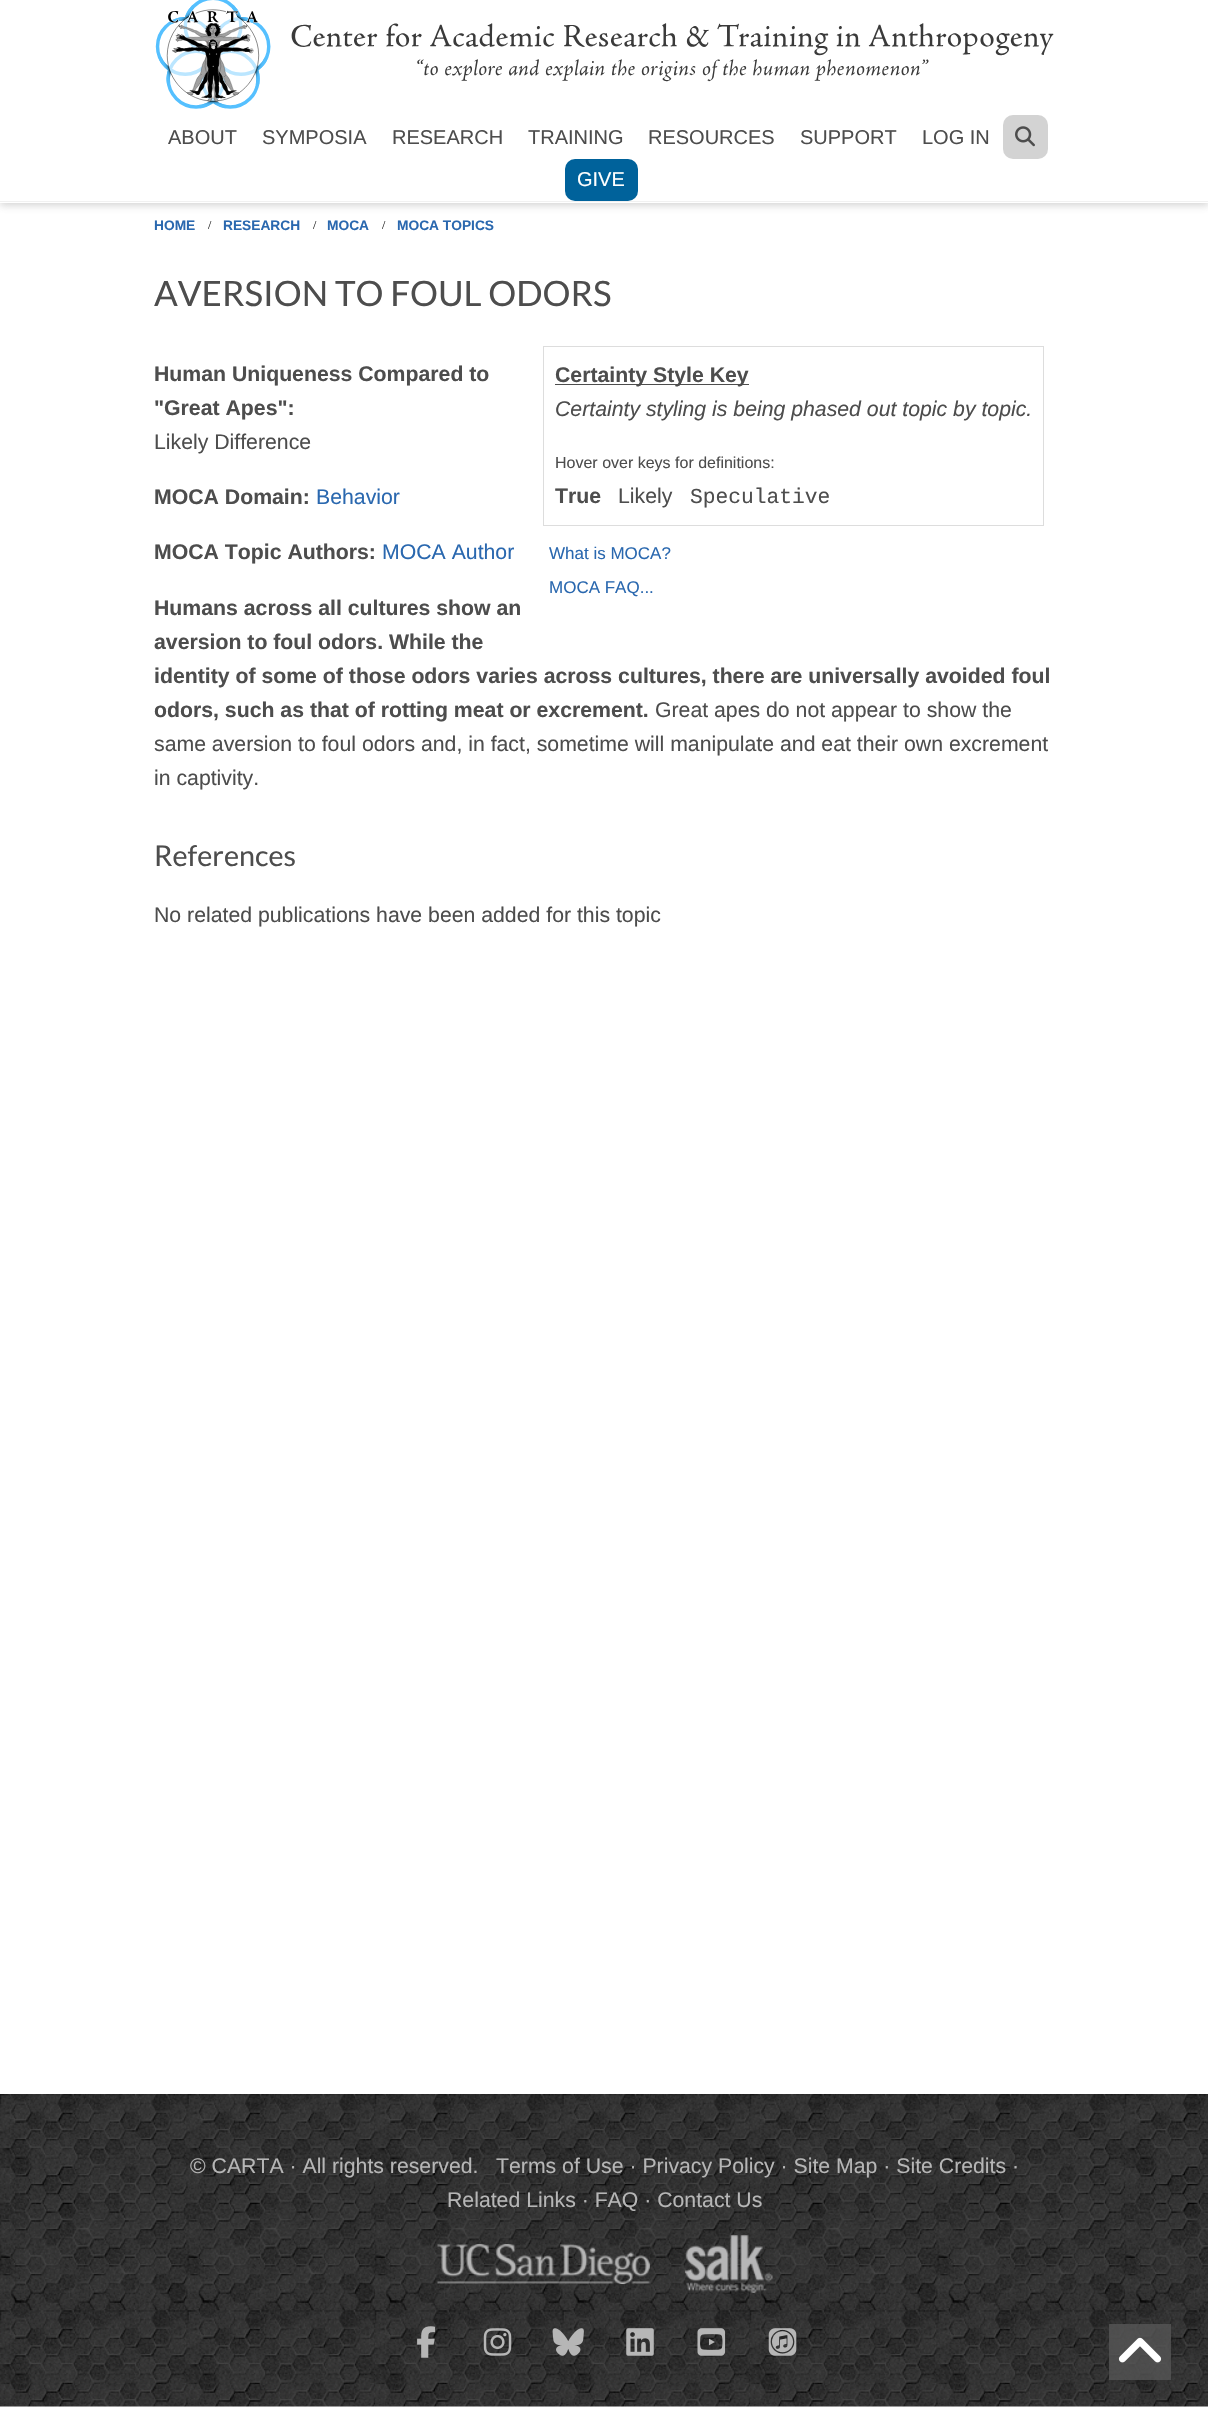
void draw(SkCanvas* canvas) {
    SkPaint paint;
    paint.setAntiAlias(true);
    canvas->clear(0xFFFFFFFF);
    paint.setColor(0x4D646464);
    paint.setMaskFilter(SkMaskFilter::MakeBlur(kNormal_SkBlurStyle, 4));
    canvas->drawRect(SkRect::MakeXYWH(0, -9, 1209, 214), paint);
    paint.setMaskFilter(nullptr);
    paint.setColor(0xFFFFFFFF);
    canvas->drawRect(SkRect::MakeXYWH(0, 0, 1208, 203), paint);
    paint.setColor(0xFFF1F1F1);
    canvas->drawRect(SkRect::MakeXYWH(0, 201, 1208, 1), paint);
    canvas->drawImageRect(SkImages::DeferredFromEncodedData(SkData::MakeFromFileName("img1.png")), SkRect::MakeXYWH(155, 0, 899, 109), SkSamplingOptions());
    SkFont font1(fontMgr->matchFamilyStyle("Liberation Sans", SkFontStyle::Normal()), 20);
    font1.setSubpixel(true);
    paint.setColor(0xFF4D4D4D);
    canvas->drawString("ABOUT", 168, 144, font1, paint);
    canvas->drawString("SYMPOSIA", 262, 144, font1, paint);
    canvas->drawString("RESEARCH", 392, 144, font1, paint);
    canvas->drawString("TRAINING", 528, 144, font1, paint);
    canvas->drawString("RESOURCES", 648, 144, font1, paint);
    canvas->drawString("SUPPORT", 800, 144, font1, paint);
    canvas->drawString("LOG IN", 922, 144, font1, paint);
    paint.setColor(0xFFD3D3D3);
    canvas->drawRoundRect(SkRect::MakeXYWH(1003, 115, 45, 44), 10, 10, paint);
    canvas->drawImageRect(SkImages::DeferredFromEncodedData(SkData::MakeFromFileName("img2.png")), SkRect::MakeXYWH(1015, 126, 20, 21), SkSamplingOptions());
    paint.setColor(0xFF00629B);
    canvas->drawRoundRect(SkRect::MakeXYWH(565, 159, 73, 42), 10, 10, paint);
    paint.setColor(0xFFFFFFFF);
    canvas->drawString("GIVE", 577, 186, font1, paint);
    SkFont font2(fontMgr->matchFamilyStyle("Liberation Sans", SkFontStyle::Bold()), 13.75f);
    font2.setSubpixel(true);
    paint.setColor(0xFF2A68AF);
    canvas->drawString("HOME", 154, 230, font2, paint);
    SkFont font3(fontMgr->matchFamilyStyle("Liberation Serif", SkFontStyle::Normal()), 12);
    font3.setSubpixel(true);
    paint.setColor(0xFF1E1E1E);
    canvas->drawString("/", 208, 229, font3, paint);
    paint.setColor(0xFF2A68AF);
    canvas->drawString("RESEARCH", 223, 230, font2, paint);
    paint.setColor(0xFF1E1E1E);
    canvas->drawString("/", 313, 229, font3, paint);
    paint.setColor(0xFF2A68AF);
    canvas->drawString("MOCA", 327, 230, font2, paint);
    paint.setColor(0xFF1E1E1E);
    canvas->drawString("/", 382, 229, font3, paint);
    paint.setColor(0xFF2A68AF);
    canvas->drawString("MOCA TOPICS", 397, 230, font2, paint);
    SkFont font4(fontMgr->matchFamilyStyle("Lato", SkFontStyle::Normal()), 35);
    font4.setSubpixel(true);
    paint.setColor(0xFF4D4D4D);
    canvas->drawString("AVERSION TO FOUL ODORS", 154, 306, font4, paint);
    SkFont font5(fontMgr->matchFamilyStyle("Liberation Sans", SkFontStyle::Bold()), 21.25f);
    font5.setSubpixel(true);
    canvas->drawString("Human Uniqueness Compared to", 154, 381, font5, paint);
    canvas->drawString("\"Great Apes\":", 154, 415, font5, paint);
    SkFont font6(fontMgr->matchFamilyStyle("Liberation Sans", SkFontStyle::Normal()), 21.25f);
    font6.setSubpixel(true);
    canvas->drawString("Likely Difference", 154, 449, font6, paint);
    canvas->drawString("MOCA Domain:", 154, 504, font5, paint);
    paint.setColor(0xFF2A68AF);
    canvas->drawString("Behavior", 316, 504, font6, paint);
    paint.setColor(0xFF4D4D4D);
    canvas->drawString("MOCA Topic Authors:", 154, 559, font5, paint);
    paint.setColor(0xFF2A68AF);
    canvas->drawString("MOCA Author", 382, 559, font6, paint);
    paint.setColor(0xFF4D4D4D);
    canvas->drawString("Humans across all cultures show an", 154, 615, font5, paint);
    canvas->drawString("aversion to foul odors. While the", 154, 649, font5, paint);
    canvas->drawString("identity of some of those odors varies across cultures, there are universally avoided foul", 154, 683, font5, paint);
    canvas->drawString("odors, such as that of rotting meat or excrement.", 154, 717, font5, paint);
    canvas->drawString("Great apes do not appear to show the", 655, 717, font6, paint);
    canvas->drawString("same aversion to foul odors and, in fact, sometime will manipulate and eat their own excrement", 154, 751, font6, paint);
    canvas->drawString("in captivity.", 154, 785, font6, paint);
    paint.setStyle(SkPaint::kStroke_Style);
    paint.setStrokeWidth(1);
    paint.setColor(0xFFDDDDDD);
    canvas->drawRect(SkRect::MakeXYWH(543.5f, 346.5f, 500, 179), paint);
    paint.setStyle(SkPaint::kFill_Style);
    paint.setColor(0xFF4D4D4D);
    canvas->drawRect(SkRect::MakeXYWH(555, 384, 194, 1), paint);
    canvas->drawString("Certainty Style Key", 555, 382, font5, paint);
    SkFont font7(fontMgr->matchFamilyStyle("Liberation Sans", SkFontStyle::Italic()), 21.25f);
    font7.setSubpixel(true);
    canvas->drawString("Certainty styling is being phased out topic by topic.", 555, 416, font7, paint);
    SkFont font8(fontMgr->matchFamilyStyle("Liberation Sans", SkFontStyle::Normal()), 16);
    font8.setSubpixel(true);
    canvas->drawString("Hover over keys for definitions:", 555, 468, font8, paint);
    canvas->drawString("True", 555, 503, font5, paint);
    canvas->drawString("Likely", 618, 503, font6, paint);
    SkFont font9(fontMgr->matchFamilyStyle("Liberation Mono", SkFontStyle::Normal()), 21.25f);
    font9.setSubpixel(true);
    canvas->drawString("Speculative", 690, 503, font9, paint);
    SkFont font10(fontMgr->matchFamilyStyle("Liberation Sans", SkFontStyle::Normal()), 17);
    font10.setSubpixel(true);
    paint.setColor(0xFF2A68AF);
    canvas->drawString("What is MOCA?", 549, 559, font10, paint);
    canvas->drawString("MOCA FAQ...", 549, 593, font10, paint);
    SkFont font11(fontMgr->matchFamilyStyle("Lato", SkFontStyle::Normal()), 28.75f);
    font11.setSubpixel(true);
    paint.setColor(0xFF4D4D4D);
    canvas->drawString("References", 154, 866, font11, paint);
    canvas->drawString("No related publications have been added for this topic", 154, 922, font6, paint);
    canvas->drawImageRect(SkImages::DeferredFromEncodedData(SkData::MakeFromFileName("img3.png")), SkRect::MakeXYWH(0, 2094, 1208, 313), SkSamplingOptions());
    paint.setColor(0xFFB6B6B6);
    canvas->drawString("© CARTA · All rights reserved.", 190, 2173, font6, paint);
    canvas->drawString("Terms of Use · Privacy Policy · Site Map · Site Credits ·", 496, 2173, font6, paint);
    canvas->drawString("Related Links · FAQ · Contact Us", 447, 2207, font6, paint);
    canvas->drawImageRect(SkImages::DeferredFromEncodedData(SkData::MakeFromFileName("img4.png")), SkRect::MakeXYWH(437, 2244, 213, 40), SkSamplingOptions());
    canvas->drawImageRect(SkImages::DeferredFromEncodedData(SkData::MakeFromFileName("img5.png")), SkRect::MakeXYWH(685, 2235, 88, 58), SkSamplingOptions());
    canvas->drawImageRect(SkImages::DeferredFromEncodedData(SkData::MakeFromFileName("img6.png")), SkRect::MakeXYWH(417, 2326, 19, 32), SkSamplingOptions());
    canvas->drawImageRect(SkImages::DeferredFromEncodedData(SkData::MakeFromFileName("img7.png")), SkRect::MakeXYWH(483, 2328, 29, 28), SkSamplingOptions());
    canvas->drawImageRect(SkImages::DeferredFromEncodedData(SkData::MakeFromFileName("img8.png")), SkRect::MakeXYWH(552, 2328, 32, 28), SkSamplingOptions());
    canvas->drawImageRect(SkImages::DeferredFromEncodedData(SkData::MakeFromFileName("img9.png")), SkRect::MakeXYWH(626, 2328, 28, 28), SkSamplingOptions());
    canvas->drawImageRect(SkImages::DeferredFromEncodedData(SkData::MakeFromFileName("img10.png")), SkRect::MakeXYWH(697, 2328, 29, 28), SkSamplingOptions());
    canvas->drawImageRect(SkImages::DeferredFromEncodedData(SkData::MakeFromFileName("img11.png")), SkRect::MakeXYWH(768, 2328, 29, 28), SkSamplingOptions());
    paint.setColor(0xCC555555);
    canvas->drawRect(SkRect::MakeXYWH(1109, 2324, 62, 56), paint);
    canvas->drawImageRect(SkImages::DeferredFromEncodedData(SkData::MakeFromFileName("img12.png")), SkRect::MakeXYWH(1118, 2337, 44, 26), SkSamplingOptions());
}
